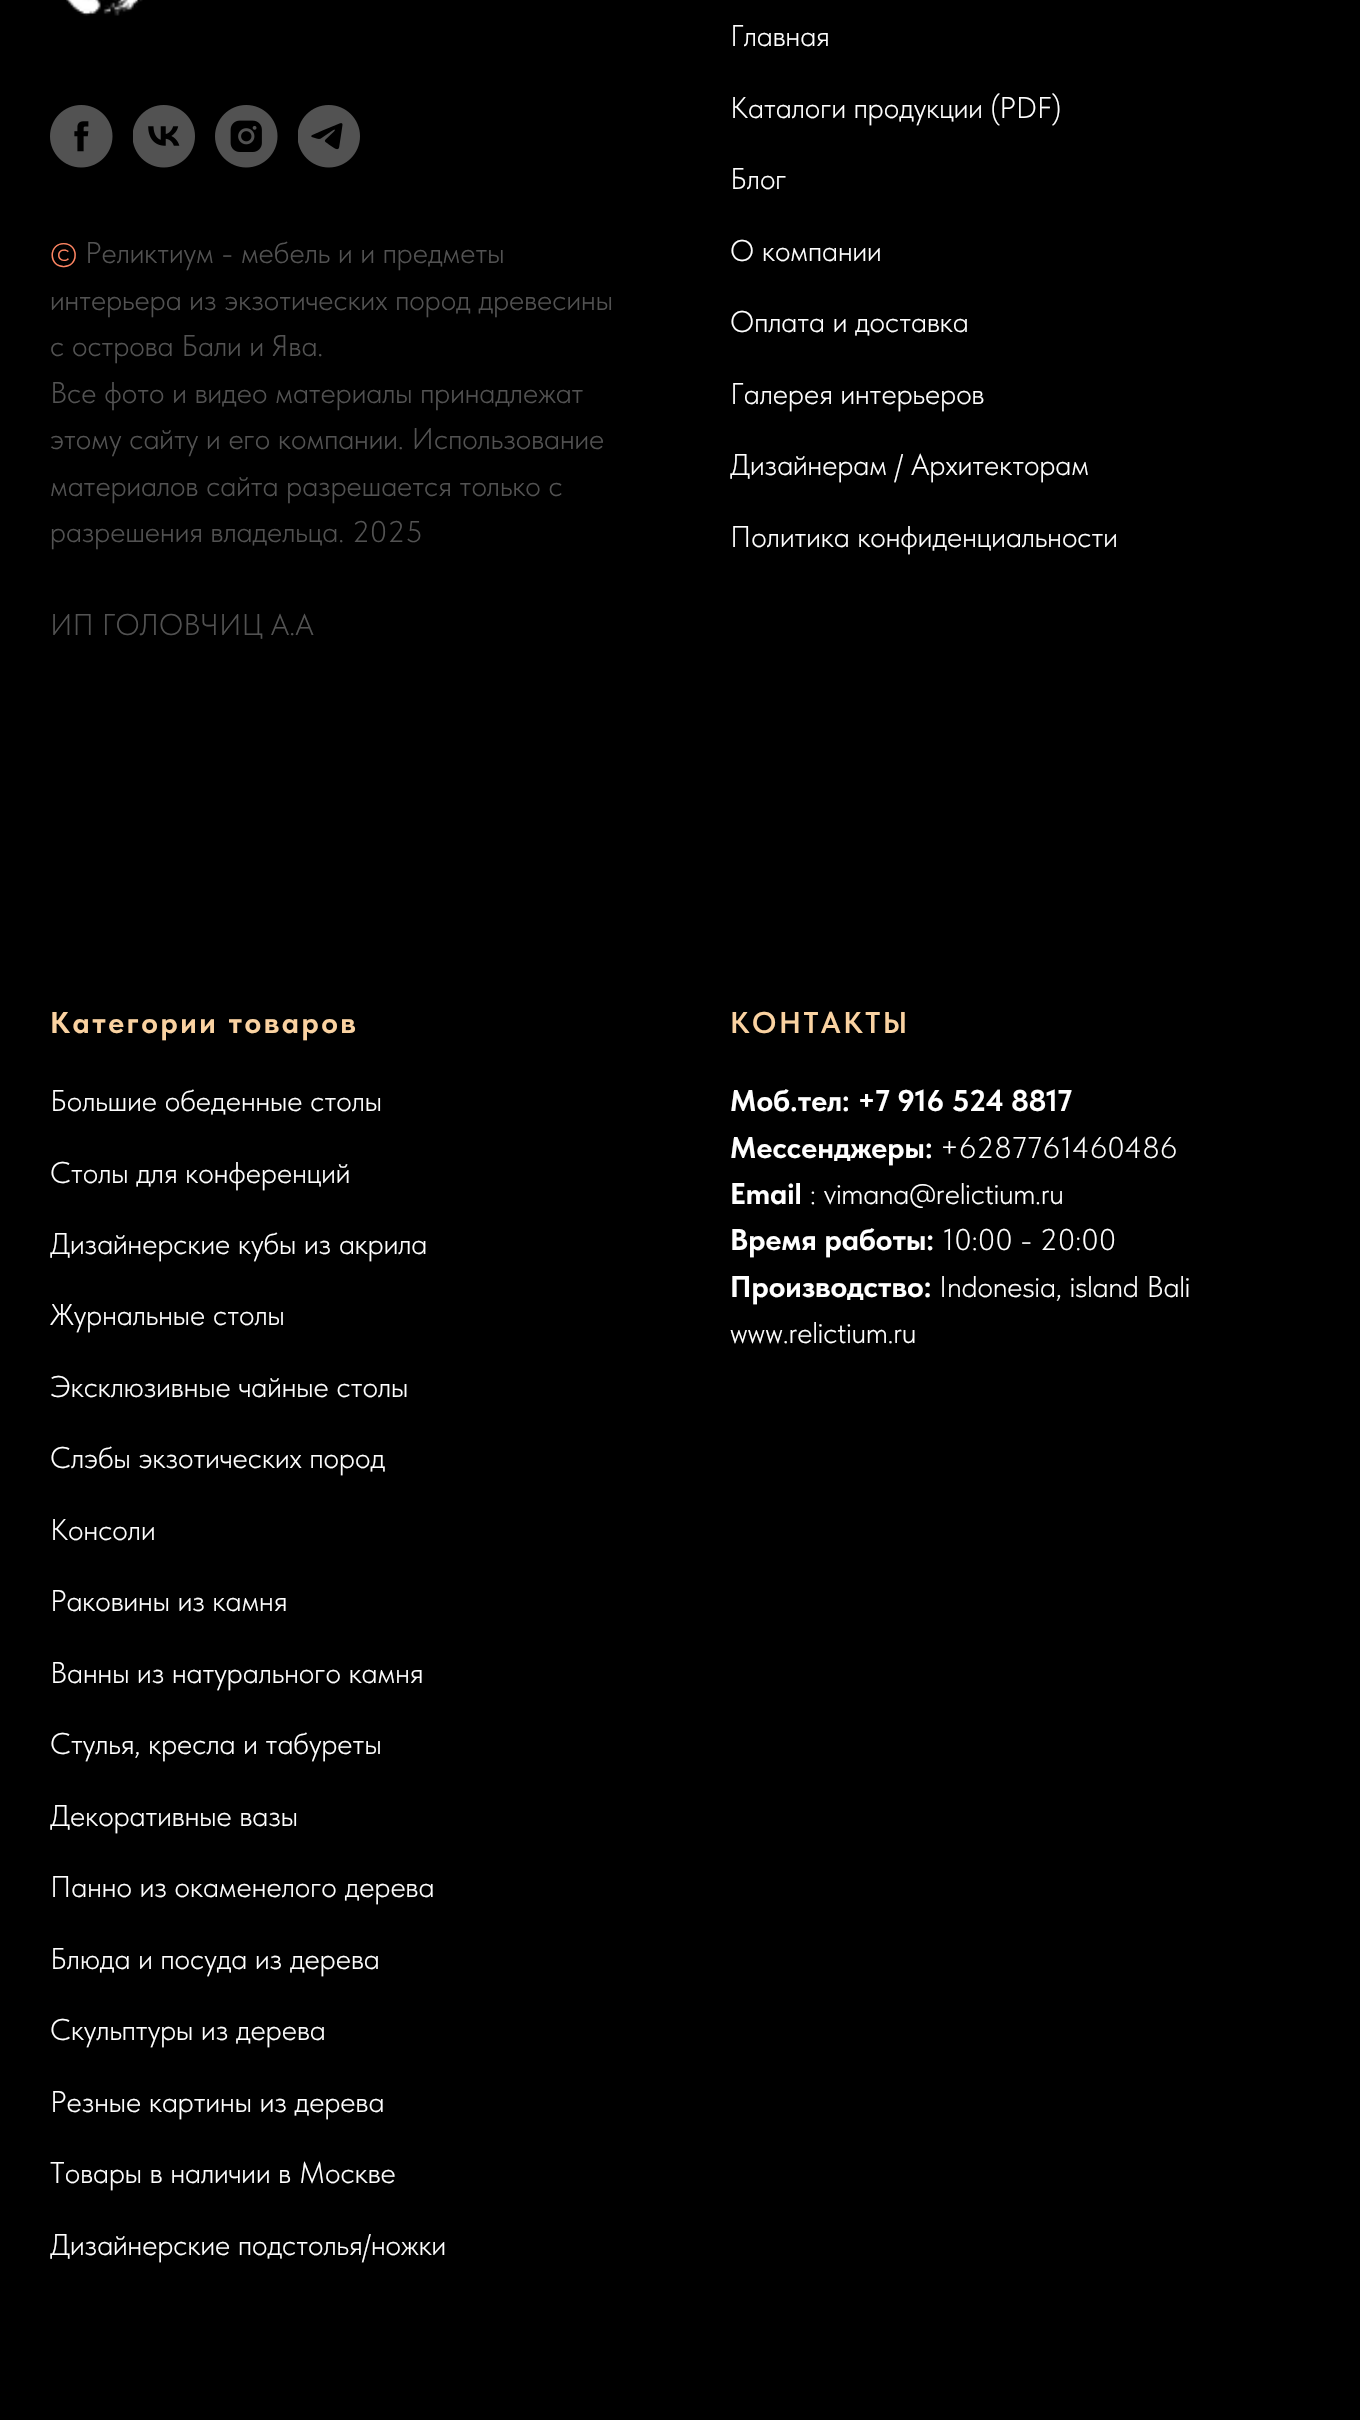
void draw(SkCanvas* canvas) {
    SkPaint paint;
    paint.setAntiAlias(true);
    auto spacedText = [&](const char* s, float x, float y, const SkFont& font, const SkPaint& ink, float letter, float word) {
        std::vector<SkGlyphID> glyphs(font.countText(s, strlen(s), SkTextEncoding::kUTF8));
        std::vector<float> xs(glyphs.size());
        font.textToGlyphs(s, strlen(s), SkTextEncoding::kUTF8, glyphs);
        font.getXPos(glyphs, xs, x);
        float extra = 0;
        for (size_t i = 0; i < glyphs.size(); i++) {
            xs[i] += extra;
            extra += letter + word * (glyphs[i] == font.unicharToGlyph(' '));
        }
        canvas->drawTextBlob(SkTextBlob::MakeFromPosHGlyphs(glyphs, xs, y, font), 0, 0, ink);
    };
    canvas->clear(0xFF000000);
    canvas->drawImageRect(SkImages::DeferredFromEncodedData(SkData::MakeFromFileName("img1.png")), SkRect::MakeXYWH(66, 0, 77, 16), SkSamplingOptions());
    canvas->drawImageRect(SkImages::DeferredFromEncodedData(SkData::MakeFromFileName("img2.png")), SkRect::MakeXYWH(50, 105, 63, 63), SkSamplingOptions());
    canvas->drawImageRect(SkImages::DeferredFromEncodedData(SkData::MakeFromFileName("img3.png")), SkRect::MakeXYWH(133, 105, 62, 63), SkSamplingOptions());
    canvas->drawImageRect(SkImages::DeferredFromEncodedData(SkData::MakeFromFileName("img4.png")), SkRect::MakeXYWH(215, 105, 63, 63), SkSamplingOptions());
    canvas->drawImageRect(SkImages::DeferredFromEncodedData(SkData::MakeFromFileName("img5.png")), SkRect::MakeXYWH(298, 105, 62, 63), SkSamplingOptions());
    SkFont font1(fontMgr->matchFamilyStyle("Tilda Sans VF", SkFontStyle(300, SkFontStyle::kNormal_Width, SkFontStyle::kUpright_Slant)), 30);
    font1.setSubpixel(true);
    paint.setColor(0xFFFF8562);
    canvas->drawString("©", 50, 263, font1, paint);
    paint.setColor(0xFF525252);
    canvas->drawString("Реликтиум - мебель и и предметы", 85, 263, font1, paint);
    canvas->drawString("интерьера из экзотических пород древесины", 50, 310, font1, paint);
    canvas->drawString("с острова Бали и Ява.", 50, 356, font1, paint);
    canvas->drawString("Все фото и видео материалы принадлежат", 50, 403, font1, paint);
    canvas->drawString("этому сайту и его компании. Использование", 50, 449, font1, paint);
    canvas->drawString("материалов сайта разрешается только с", 50, 496, font1, paint);
    canvas->drawString("разрешения владельца. 2025", 50, 542, font1, paint);
    canvas->drawString("ИП ГОЛОВЧИЦ А.А", 50, 635, font1, paint);
    paint.setColor(0xFFFFFFFF);
    canvas->drawString("Главная", 730, 46, font1, paint);
    canvas->drawString("Каталоги продукции (PDF)", 730, 118, font1, paint);
    canvas->drawString("Блог", 730, 189, font1, paint);
    canvas->drawString("О компании", 730, 261, font1, paint);
    canvas->drawString("Оплата и доставка", 730, 332, font1, paint);
    canvas->drawString("Галерея интерьеров", 730, 404, font1, paint);
    canvas->drawString("Дизайнерам / Архитекторам", 730, 475, font1, paint);
    canvas->drawString("Политика конфиденциальности", 730, 547, font1, paint);
    SkFont font2(fontMgr->matchFamilyStyle("Tilda Sans VF", SkFontStyle::Bold()), 30);
    font2.setSubpixel(true);
    paint.setColor(0xFFFAD2A1);
    spacedText("Категории товаров", 50, 1033, font2, paint, 2.5f, 0);
    paint.setColor(0xFFFFFFFF);
    canvas->drawString("Большие обеденные столы", 50, 1111, font1, paint);
    canvas->drawString("Столы для конференций", 50, 1183, font1, paint);
    canvas->drawString("Дизайнерские кубы из акрила", 50, 1254, font1, paint);
    canvas->drawString("Журнальные столы", 50, 1325, font1, paint);
    canvas->drawString("Эксклюзивные чайные столы", 50, 1397, font1, paint);
    canvas->drawString("Слэбы экзотических пород", 50, 1468, font1, paint);
    canvas->drawString("Консоли", 50, 1540, font1, paint);
    canvas->drawString("Раковины из камня", 50, 1611, font1, paint);
    canvas->drawString("Ванны из натурального камня", 50, 1683, font1, paint);
    canvas->drawString("Стулья, кресла и табуреты", 50, 1754, font1, paint);
    canvas->drawString("Декоративные вазы", 50, 1826, font1, paint);
    canvas->drawString("Панно из окаменелого дерева", 50, 1897, font1, paint);
    canvas->drawString("Блюда и посуда из дерева", 50, 1969, font1, paint);
    canvas->drawString("Скульптуры из дерева", 50, 2040, font1, paint);
    canvas->drawString("Резные картины из дерева", 50, 2112, font1, paint);
    canvas->drawString("Товары в наличии в Москве", 50, 2183, font1, paint);
    canvas->drawString("Дизайнерские подстолья/ножки", 50, 2255, font1, paint);
    SkFont font3(fontMgr->matchFamilyStyle("Tilda Sans VF", SkFontStyle(600, SkFontStyle::kNormal_Width, SkFontStyle::kUpright_Slant)), 30);
    font3.setSubpixel(true);
    paint.setColor(0xFFFAD2A1);
    spacedText("КОНТАКТЫ", 730, 1033, font3, paint, 2.5f, 0);
    paint.setColor(0xFFFFFFFF);
    canvas->drawString("Моб.тел: +7 916 524 8817", 730, 1111, font2, paint);
    canvas->drawString("Мессенджеры:", 730, 1158, font2, paint);
    canvas->drawString("+6287761460486", 940, 1158, font1, paint);
    canvas->drawString("Email", 730, 1204, font2, paint);
    canvas->drawString(": vimana@relictium.ru", 810, 1204, font1, paint);
    canvas->drawString("Время работы:", 730, 1250, font2, paint);
    canvas->drawString("10:00 - 20:00", 942, 1250, font1, paint);
    canvas->drawString("Производство:", 730, 1297, font2, paint);
    canvas->drawString("Indonesia, island Bali", 939, 1297, font1, paint);
    canvas->drawString("www.relictium.ru", 730, 1343, font1, paint);
}
